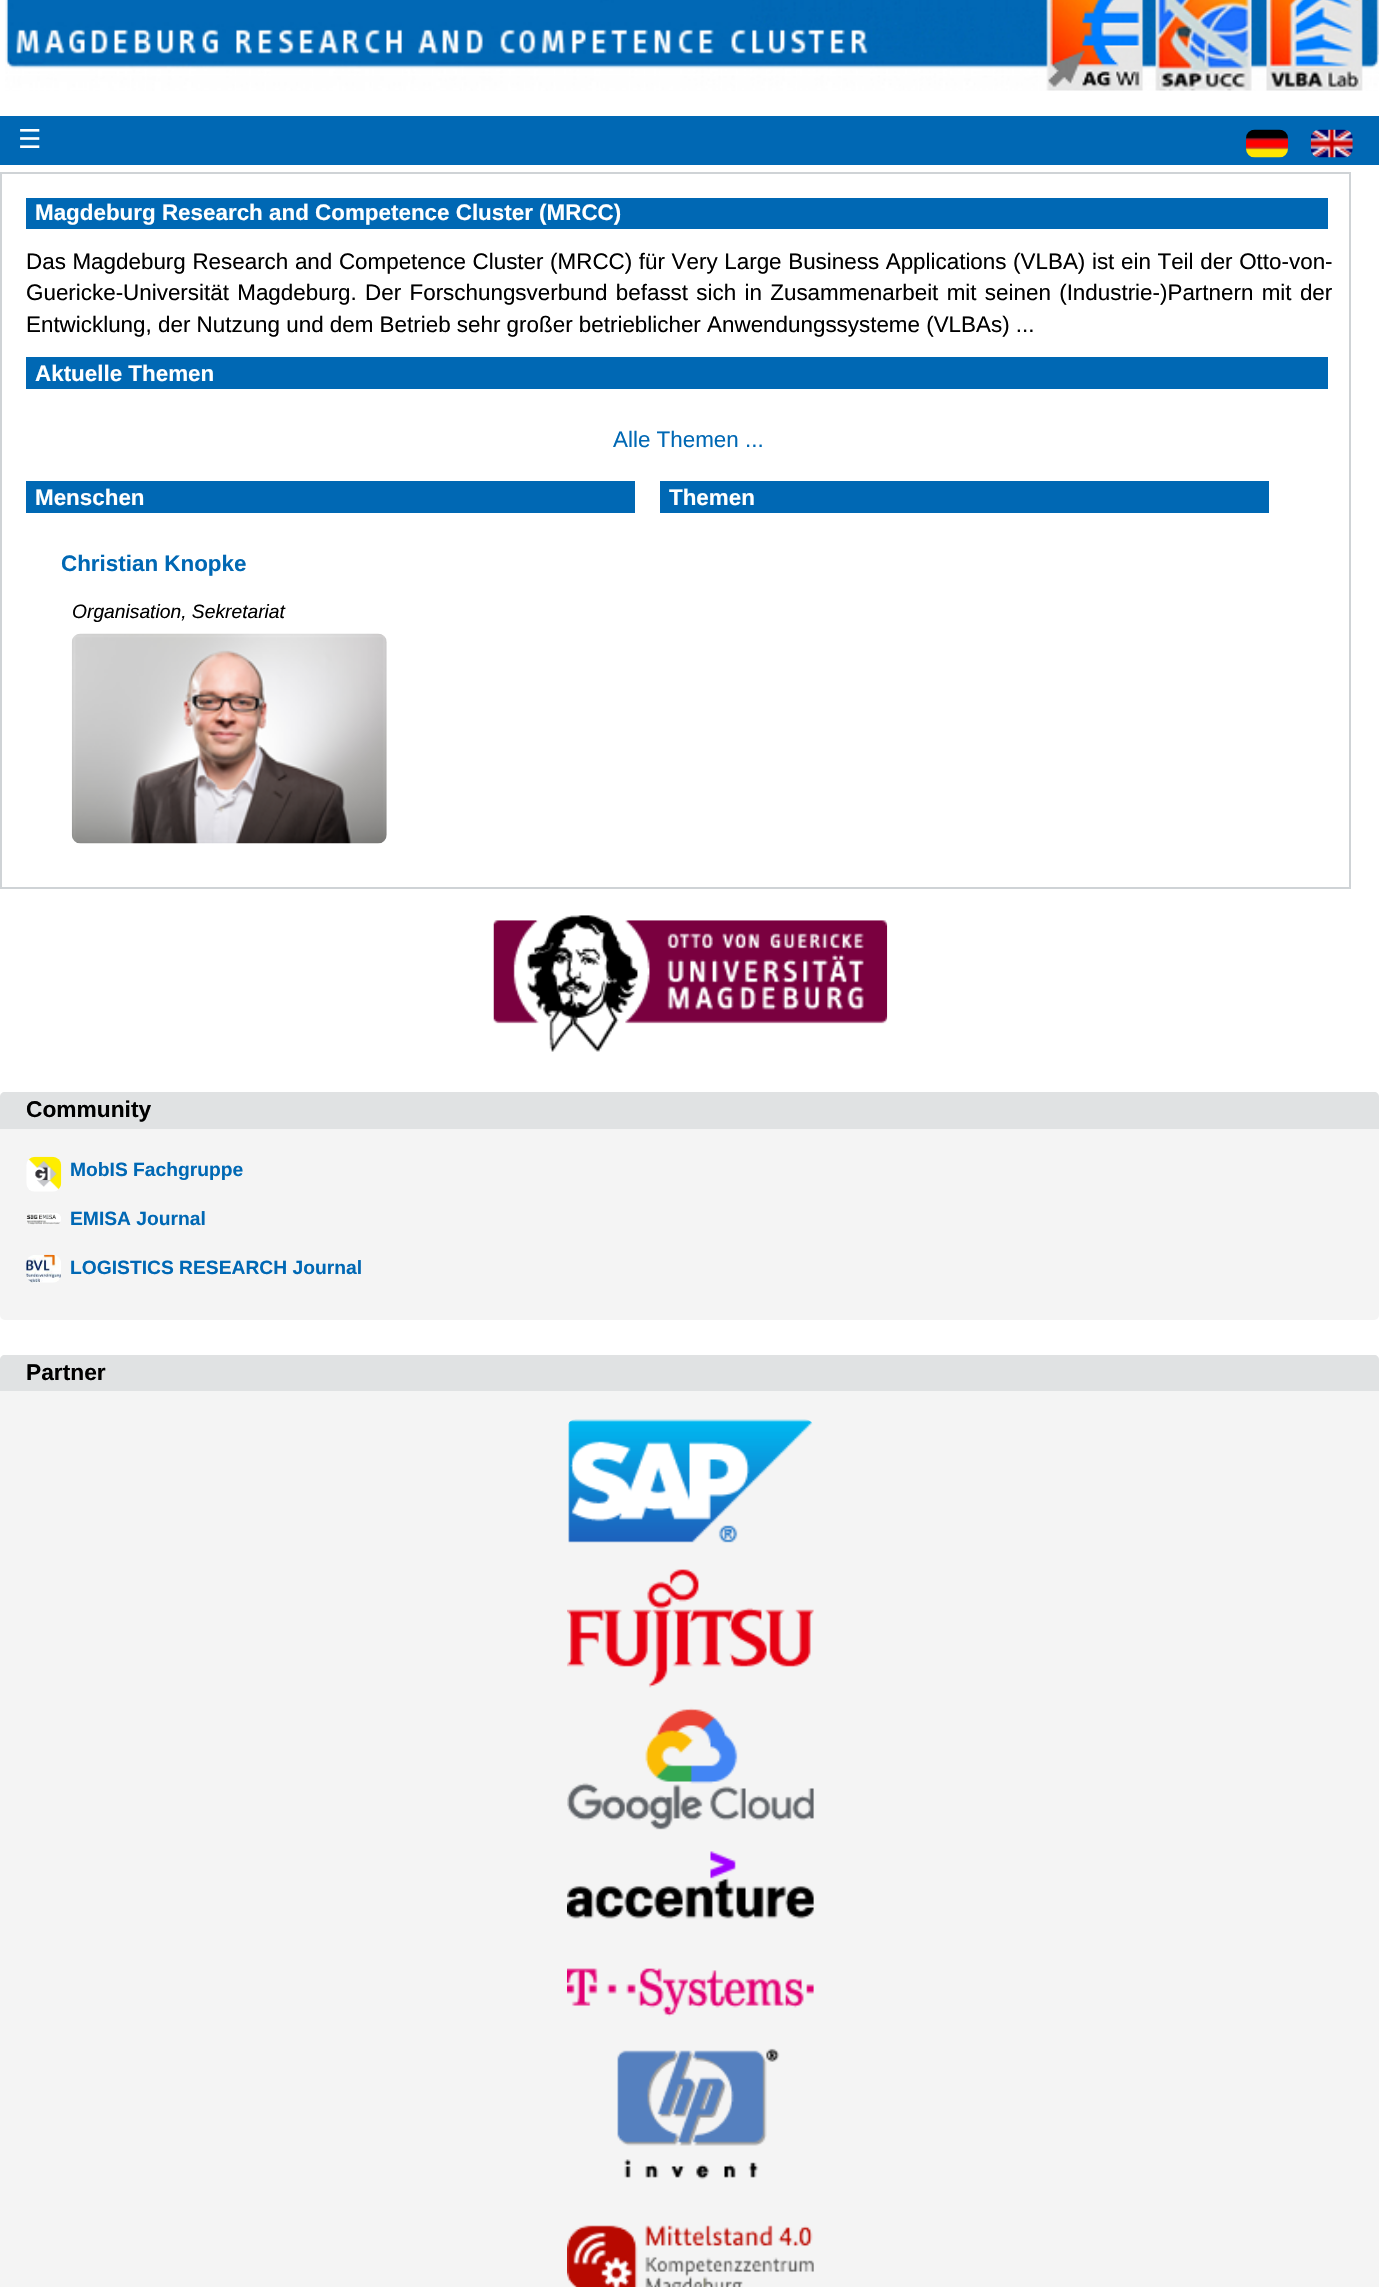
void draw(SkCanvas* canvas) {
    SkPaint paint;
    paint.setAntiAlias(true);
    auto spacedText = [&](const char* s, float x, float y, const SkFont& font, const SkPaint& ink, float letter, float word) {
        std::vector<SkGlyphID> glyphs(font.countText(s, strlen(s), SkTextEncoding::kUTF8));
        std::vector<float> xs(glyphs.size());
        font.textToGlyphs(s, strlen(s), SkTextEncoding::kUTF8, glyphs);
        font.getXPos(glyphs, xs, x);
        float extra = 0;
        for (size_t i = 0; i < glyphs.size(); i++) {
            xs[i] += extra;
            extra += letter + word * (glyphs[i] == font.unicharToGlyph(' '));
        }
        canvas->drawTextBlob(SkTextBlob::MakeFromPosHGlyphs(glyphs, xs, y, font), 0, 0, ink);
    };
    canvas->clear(0xFFFFFFFF);
    canvas->drawImageRect(SkImages::DeferredFromEncodedData(SkData::MakeFromFileName("img1.png")), SkRect::MakeXYWH(5, 0, 1374, 91), SkSamplingOptions());
    paint.setColor(0xFF0068B4);
    canvas->drawRect(SkRect::MakeXYWH(0, 116, 1379, 49), paint);
    SkFont font1(fontMgr->matchFamilyStyle("DejaVu Sans", SkFontStyle::Normal()), 26);
    font1.setSubpixel(true);
    paint.setColor(0xFFFFFFFF);
    canvas->drawString("☰", 18, 148, font1, paint);
    canvas->drawImageRect(SkImages::DeferredFromEncodedData(SkData::MakeFromFileName("img2.png")), SkRect::MakeXYWH(1246, 129, 42, 29), SkSamplingOptions());
    canvas->drawImageRect(SkImages::DeferredFromEncodedData(SkData::MakeFromFileName("img3.png")), SkRect::MakeXYWH(1310, 129, 43, 29), SkSamplingOptions());
    paint.setStyle(SkPaint::kStroke_Style);
    paint.setStrokeWidth(2);
    paint.setColor(0xFFCFD3D6);
    canvas->drawRect(SkRect::MakeXYWH(1, 173, 1349, 715), paint);
    paint.setStyle(SkPaint::kFill_Style);
    paint.setColor(0xFF0068B4);
    canvas->drawRect(SkRect::MakeXYWH(26, 198, 1302, 31), paint);
    SkFont font2(fontMgr->matchFamilyStyle("Liberation Sans", SkFontStyle::Bold()), 22.4f);
    font2.setSubpixel(true);
    paint.setColor(0xFFFFFFFF);
    canvas->drawString("Magdeburg Research and Competence Cluster (MRCC)", 35, 220, font2, paint);
    SkFont font3(fontMgr->matchFamilyStyle("Liberation Sans", SkFontStyle::Normal()), 22.4f);
    font3.setSubpixel(true);
    paint.setColor(0xFF000000);
    spacedText("Das Magdeburg Research and Competence Cluster (MRCC) für Very Large Business Applications (VLBA) ist ein Teil der Otto-von-", 26, 269, font3, paint, 0, 0.4f);
    spacedText("Guericke-Universität Magdeburg. Der Forschungsverbund befasst sich in Zusammenarbeit mit seinen (Industrie-)Partnern mit der", 26, 300, font3, paint, 0, 2.1f);
    canvas->drawString("Entwicklung, der Nutzung und dem Betrieb sehr großer betrieblicher Anwendungssysteme (VLBAs) ...", 26, 332, font3, paint);
    paint.setColor(0xFF0068B4);
    canvas->drawRect(SkRect::MakeXYWH(26, 357, 1302, 32), paint);
    paint.setColor(0xFFFFFFFF);
    canvas->drawString("Aktuelle Themen", 35, 381, font2, paint);
    paint.setColor(0xFF0068B4);
    canvas->drawString("Alle Themen ...", 613, 447, font3, paint);
    canvas->drawRect(SkRect::MakeXYWH(26, 481, 609, 32), paint);
    paint.setColor(0xFFFFFFFF);
    canvas->drawString("Menschen", 35, 505, font2, paint);
    paint.setColor(0xFF0068B4);
    canvas->drawString("Christian Knopke", 61, 571, font2, paint);
    SkFont font4(fontMgr->matchFamilyStyle("Liberation Sans", SkFontStyle::Italic()), 19.25f);
    font4.setSubpixel(true);
    paint.setColor(0xFF000000);
    canvas->drawString("Organisation, Sekretariat", 72, 618, font4, paint);
    canvas->drawImageRect(SkImages::DeferredFromEncodedData(SkData::MakeFromFileName("img4.png")), SkRect::MakeXYWH(71, 633, 316, 211), SkSamplingOptions());
    paint.setColor(0xFF0068B4);
    canvas->drawRect(SkRect::MakeXYWH(660, 481, 609, 32), paint);
    paint.setColor(0xFFFFFFFF);
    canvas->drawString("Themen", 669, 505, font2, paint);
    canvas->drawImageRect(SkImages::DeferredFromEncodedData(SkData::MakeFromFileName("img5.png")), SkRect::MakeXYWH(493, 915, 395, 137), SkSamplingOptions());
    paint.setColor(0xFFF4F4F4);
    canvas->drawRoundRect(SkRect::MakeXYWH(0, 1092, 1379, 228), 5, 5, paint);
    paint.setColor(0xFFE0E2E3);
    canvas->drawPath(SkPathBuilder().moveTo(5, 1092).lineTo(1374, 1092).cubicTo(1377, 1092, 1379, 1094, 1379, 1097).lineTo(1379, 1131).lineTo(0, 1131).lineTo(0, 1097).cubicTo(0, 1094, 2, 1092, 5, 1092).close().detach(), paint);
    paint.setColor(0xFFF4F4F4);
    canvas->drawRect(SkRect::MakeXYWH(0, 1129, 1379, 2), paint);
    SkFont font5(fontMgr->matchFamilyStyle("Liberation Sans", SkFontStyle::Bold()), 22.75f);
    font5.setSubpixel(true);
    paint.setColor(0xFF000000);
    canvas->drawString("Community", 26, 1117, font5, paint);
    canvas->drawImageRect(SkImages::DeferredFromEncodedData(SkData::MakeFromFileName("img6.png")), SkRect::MakeXYWH(26, 1156, 36, 36), SkSamplingOptions());
    SkFont font6(fontMgr->matchFamilyStyle("Liberation Sans", SkFontStyle::Bold()), 19.25f);
    font6.setSubpixel(true);
    paint.setColor(0xFF0068B4);
    canvas->drawString("MobIS Fachgruppe", 70, 1176, font6, paint);
    canvas->drawImageRect(SkImages::DeferredFromEncodedData(SkData::MakeFromFileName("img7.png")), SkRect::MakeXYWH(26, 1213, 35, 12), SkSamplingOptions());
    canvas->drawString("EMISA Journal", 70, 1225, font6, paint);
    canvas->drawImageRect(SkImages::DeferredFromEncodedData(SkData::MakeFromFileName("img8.png")), SkRect::MakeXYWH(26, 1254, 35, 29), SkSamplingOptions());
    canvas->drawString("LOGISTICS RESEARCH Journal", 70, 1274, font6, paint);
    paint.setColor(0xFFF4F4F4);
    canvas->drawRoundRect(SkRect::MakeXYWH(0, 1355, 1379, 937), 5, 5, paint);
    paint.setColor(0xFFE0E2E3);
    canvas->drawPath(SkPathBuilder().moveTo(5, 1355).lineTo(1374, 1355).cubicTo(1377, 1355, 1379, 1357, 1379, 1360).lineTo(1379, 1393).lineTo(0, 1393).lineTo(0, 1360).cubicTo(0, 1357, 2, 1355, 5, 1355).close().detach(), paint);
    paint.setColor(0xFFF4F4F4);
    canvas->drawRect(SkRect::MakeXYWH(0, 1391, 1379, 2), paint);
    paint.setColor(0xFF000000);
    canvas->drawString("Partner", 26, 1380, font5, paint);
    canvas->drawImageRect(SkImages::DeferredFromEncodedData(SkData::MakeFromFileName("img9.png")), SkRect::MakeXYWH(567, 1419, 247, 868), SkSamplingOptions());
}
